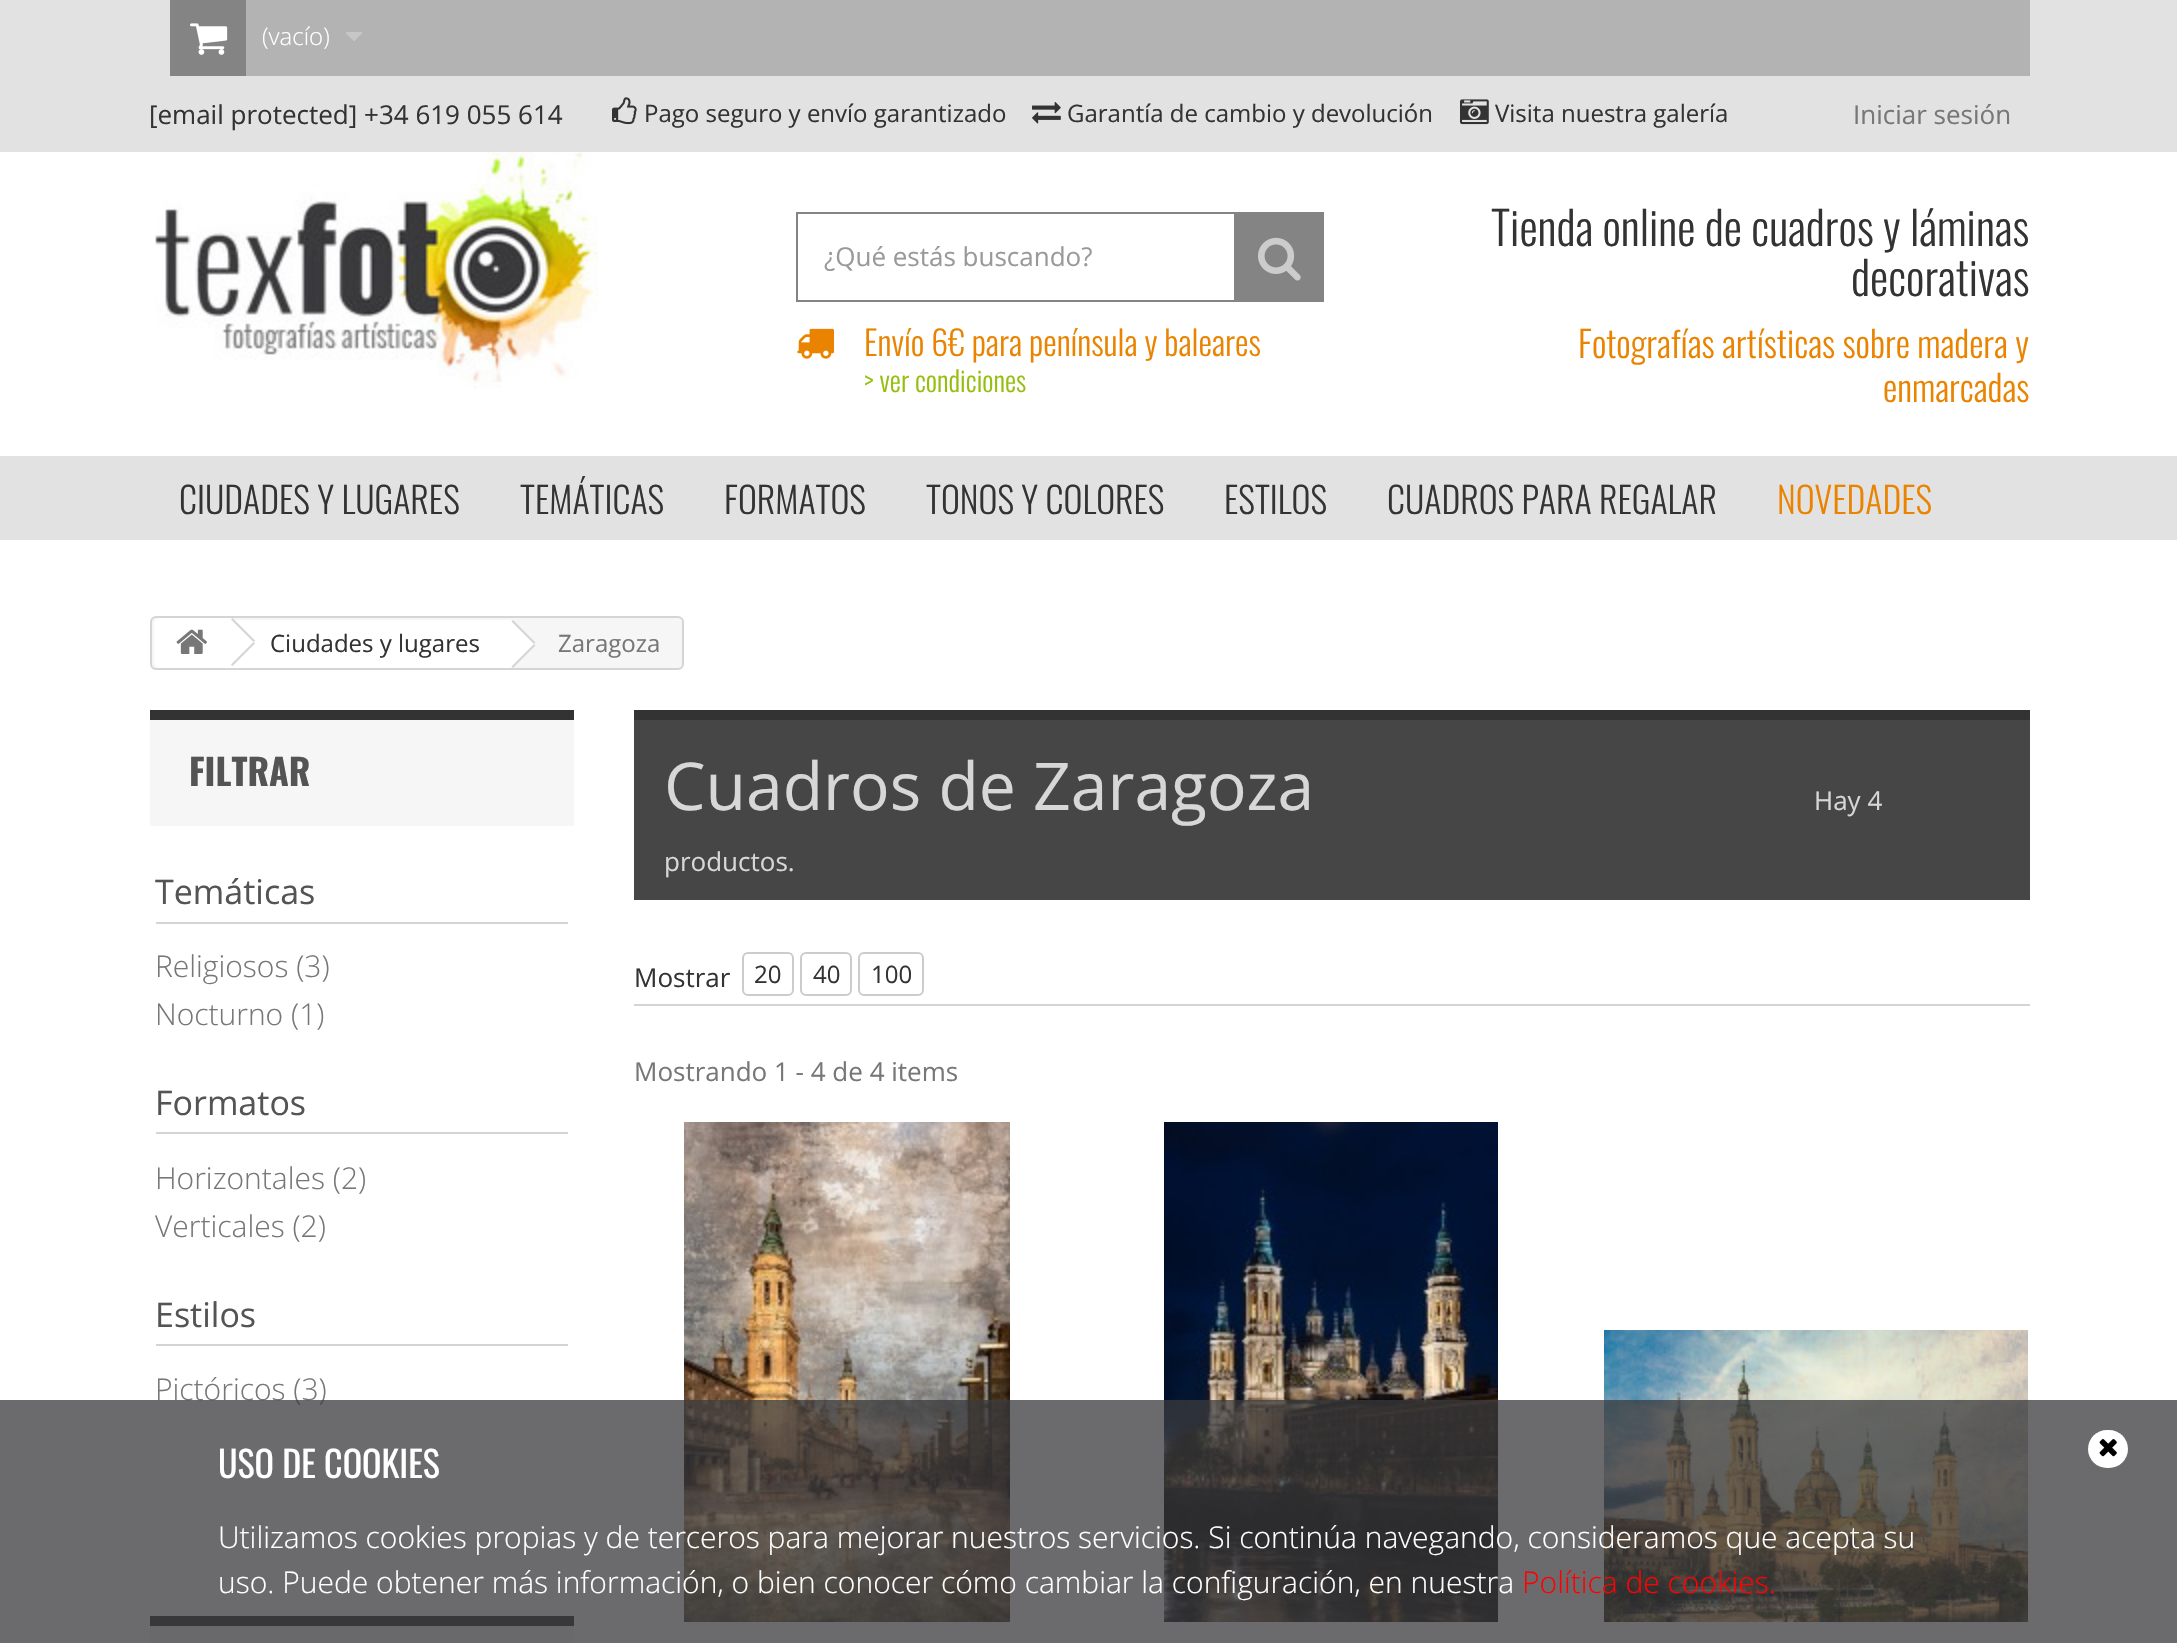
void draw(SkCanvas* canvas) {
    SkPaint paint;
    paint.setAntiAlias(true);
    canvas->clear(0xFFFFFFFF);
    paint.setColor(0xFFE2E2E2);
    canvas->drawRect(SkRect::MakeXYWH(0, 0, 2177, 152), paint);
    paint.setColor(0xFFB3B3B3);
    canvas->drawRect(SkRect::MakeXYWH(246, 0, 1784, 76), paint);
    paint.setColor(0xFF848484);
    canvas->drawRect(SkRect::MakeXYWH(170, 0, 76, 76), paint);
    canvas->drawImageRect(SkImages::DeferredFromEncodedData(SkData::MakeFromFileName("img1.png")), SkRect::MakeXYWH(190, 23, 38, 32), SkSamplingOptions());
    SkFont font1(fontMgr->matchFamilyStyle("Open Sans", SkFontStyle(300, SkFontStyle::kNormal_Width, SkFontStyle::kUpright_Slant)), 24);
    font1.setSubpixel(true);
    paint.setColor(0xFFFFFFFF);
    canvas->drawString("(vacío)", 262, 45, font1, paint);
    canvas->drawImageRect(SkImages::DeferredFromEncodedData(SkData::MakeFromFileName("img2.png")), SkRect::MakeXYWH(346, 32, 16, 9), SkSamplingOptions());
    SkFont font2(fontMgr->matchFamilyStyle("Open Sans", SkFontStyle::Normal()), 26);
    font2.setSubpixel(true);
    paint.setColor(0xFF333333);
    canvas->drawString("[email protected] +34 619 055 614", 149, 124, font2, paint);
    canvas->drawImageRect(SkImages::DeferredFromEncodedData(SkData::MakeFromFileName("img3.png")), SkRect::MakeXYWH(612, 97, 25, 28), SkSamplingOptions());
    SkFont font3(fontMgr->matchFamilyStyle("Open Sans", SkFontStyle::Normal()), 24);
    font3.setSubpixel(true);
    canvas->drawString("Pago seguro y envío garantizado", 644, 122, font3, paint);
    canvas->drawImageRect(SkImages::DeferredFromEncodedData(SkData::MakeFromFileName("img4.png")), SkRect::MakeXYWH(1032, 102, 29, 22), SkSamplingOptions());
    canvas->drawString("Garantía de cambio y devolución", 1067, 122, font3, paint);
    canvas->drawImageRect(SkImages::DeferredFromEncodedData(SkData::MakeFromFileName("img5.png")), SkRect::MakeXYWH(1460, 99, 29, 26), SkSamplingOptions());
    canvas->drawString("Visita nuestra galería", 1495, 122, font3, paint);
    paint.setColor(0xFF777777);
    canvas->drawString("Iniciar sesión", 1853, 124, font2, paint);
    canvas->drawImageRect(SkImages::DeferredFromEncodedData(SkData::MakeFromFileName("img6.png")), SkRect::MakeXYWH(155, 152, 443, 236), SkSamplingOptions());
    paint.setStyle(SkPaint::kStroke_Style);
    paint.setStrokeWidth(2);
    paint.setColor(0xFF848484);
    canvas->drawRect(SkRect::MakeXYWH(797, 213, 466, 88), paint);
    paint.setStyle(SkPaint::kFill_Style);
    paint.setColor(0xFF999999);
    canvas->drawString("¿Qué estás buscando?", 824, 266, font2, paint);
    paint.setColor(0xFF848484);
    canvas->drawRect(SkRect::MakeXYWH(1234, 212, 90, 90), paint);
    canvas->drawImageRect(SkImages::DeferredFromEncodedData(SkData::MakeFromFileName("img7.png")), SkRect::MakeXYWH(1258, 237, 43, 44), SkSamplingOptions());
    canvas->drawImageRect(SkImages::DeferredFromEncodedData(SkData::MakeFromFileName("img8.png")), SkRect::MakeXYWH(797, 328, 37, 31), SkSamplingOptions());
    SkFont font4(fontMgr->matchFamilyStyle("Oswald", SkFontStyle(300, SkFontStyle::kNormal_Width, SkFontStyle::kUpright_Slant)), 34);
    font4.setSubpixel(true);
    paint.setColor(0xFFEA8400);
    canvas->drawString("Envío 6€ para península y baleares", 864, 356, font4, paint);
    SkFont font5(fontMgr->matchFamilyStyle("Oswald", SkFontStyle(300, SkFontStyle::kNormal_Width, SkFontStyle::kUpright_Slant)), 28);
    font5.setSubpixel(true);
    paint.setColor(0xFF96BE0F);
    canvas->drawString("> ver condiciones", 864, 392, font5, paint);
    SkFont font6(fontMgr->matchFamilyStyle("Oswald", SkFontStyle(300, SkFontStyle::kNormal_Width, SkFontStyle::kUpright_Slant)), 46);
    font6.setSubpixel(true);
    paint.setColor(0xFF333333);
    canvas->drawString("Tienda online de cuadros y láminas", 1491, 246, font6, paint);
    canvas->drawString("decorativas", 1851, 296, font6, paint);
    SkFont font7(fontMgr->matchFamilyStyle("Oswald", SkFontStyle(300, SkFontStyle::kNormal_Width, SkFontStyle::kUpright_Slant)), 36);
    font7.setSubpixel(true);
    paint.setColor(0xFFEA8400);
    canvas->drawString("Fotografías artísticas sobre madera y", 1578, 358, font7, paint);
    canvas->drawString("enmarcadas", 1883, 402, font7, paint);
    paint.setColor(0xFFE2E2E2);
    canvas->drawRect(SkRect::MakeXYWH(0, 456, 2177, 84), paint);
    paint.setColor(0xFF333333);
    canvas->drawString("CIUDADES Y LUGARES", 179, 514, font7, paint);
    canvas->drawString("TEMÁTICAS", 520, 514, font7, paint);
    canvas->drawString("FORMATOS", 724, 514, font7, paint);
    canvas->drawString("TONOS Y COLORES", 926, 514, font7, paint);
    canvas->drawString("ESTILOS", 1224, 514, font7, paint);
    canvas->drawString("CUADROS PARA REGALAR", 1387, 514, font7, paint);
    paint.setColor(0xFFEA8400);
    canvas->drawString("NOVEDADES", 1777, 514, font7, paint);
    paint.setColor(0xFFF6F6F6);
    canvas->drawRoundRect(SkRect::MakeXYWH(151, 617, 532, 52), 5, 5, paint);
    paint.setStyle(SkPaint::kStroke_Style);
    paint.setColor(0xFFD6D4D4);
    canvas->drawRoundRect(SkRect::MakeXYWH(151, 617, 532, 52), 5, 5, paint);
    paint.setStyle(SkPaint::kFill_Style);
    paint.setColor(0xFFFFFFFF);
    canvas->drawPath(SkPathBuilder().moveTo(160, 618).lineTo(230, 618).lineTo(230, 668).lineTo(160, 668).cubicTo(156.5f, 668, 154, 665.5f, 154, 662).lineTo(154, 624).cubicTo(154, 620.5f, 156.5f, 618, 160, 618).close().detach(), paint);
    canvas->drawImageRect(SkImages::DeferredFromEncodedData(SkData::MakeFromFileName("img9.png")), SkRect::MakeXYWH(176, 629, 31, 25), SkSamplingOptions());
    canvas->drawRect(SkRect::MakeXYWH(230, 620, 280, 48), paint);
    canvas->drawPath(SkPathBuilder().moveTo(234, 619).lineTo(254, 639).cubicTo(255, 641, 255, 643, 254, 645).lineTo(234, 665).cubicTo(232, 666, 230, 666, 228, 665).lineTo(208, 645).cubicTo(207, 643, 207, 641, 208, 639).lineTo(228, 619).cubicTo(230, 618, 232, 618, 234, 619).close().detach(), paint);
    paint.setColor(0xFFD6D4D4);
    canvas->drawPath(SkPathBuilder().moveTo(232.5f, 618).lineTo(255, 640.5f).lineTo(253.5f, 642).lineTo(231, 619.5f).close().moveTo(253.5f, 642).lineTo(255, 643.5f).lineTo(232.5f, 666).lineTo(231, 664.5f).close().detach(), paint);
    paint.setColor(0xFF333333);
    canvas->drawString("Ciudades y lugares", 270, 652, font3, paint);
    paint.setColor(0xFFFFFFFF);
    canvas->drawPath(SkPathBuilder().moveTo(514, 621).lineTo(534, 641).cubicTo(536, 643, 536, 645, 534, 647).lineTo(514, 667).cubicTo(513, 668, 510, 668, 509, 667).lineTo(489, 647).cubicTo(487, 645, 487, 643, 489, 641).lineTo(509, 621).cubicTo(510, 620, 513, 620, 514, 621).close().detach(), paint);
    paint.setColor(0xFFD6D4D4);
    canvas->drawPath(SkPathBuilder().moveTo(513, 620).lineTo(535.5f, 642.5f).lineTo(534, 644).lineTo(511.5f, 621.5f).close().moveTo(534, 644).lineTo(535.5f, 645.5f).lineTo(513, 668).lineTo(511.5f, 666.5f).close().detach(), paint);
    paint.setColor(0xFF777777);
    canvas->drawString("Zaragoza", 558, 652, font3, paint);
    paint.setColor(0xFFF6F6F6);
    canvas->drawRect(SkRect::MakeXYWH(150, 720, 424, 106), paint);
    paint.setColor(0xFF333333);
    canvas->drawRect(SkRect::MakeXYWH(150, 710, 424, 10), paint);
    SkFont font8(fontMgr->matchFamilyStyle("Oswald", SkFontStyle::Bold()), 36);
    font8.setSubpixel(true);
    paint.setColor(0xFF555454);
    canvas->drawString("FILTRAR", 189, 786, font8, paint);
    paint.setColor(0xFFD6D4D4);
    canvas->drawRect(SkRect::MakeXYWH(156, 922, 412, 2), paint);
    SkFont font9(fontMgr->matchFamilyStyle("Open Sans", SkFontStyle::Normal()), 34);
    font9.setSubpixel(true);
    paint.setColor(0xFF555454);
    canvas->drawString("Temáticas", 155, 904, font9, paint);
    SkFont font10(fontMgr->matchFamilyStyle("Open Sans", SkFontStyle(300, SkFontStyle::kNormal_Width, SkFontStyle::kUpright_Slant)), 30);
    font10.setSubpixel(true);
    paint.setColor(0xFF777777);
    canvas->drawString("Religiosos (3)", 155, 977, font10, paint);
    canvas->drawString("Nocturno (1)", 155, 1025, font10, paint);
    paint.setColor(0xFFD6D4D4);
    canvas->drawRect(SkRect::MakeXYWH(156, 1132, 412, 2), paint);
    paint.setColor(0xFF555454);
    canvas->drawString("Formatos", 155, 1115, font9, paint);
    paint.setColor(0xFF777777);
    canvas->drawString("Horizontales (2)", 155, 1189, font10, paint);
    canvas->drawString("Verticales (2)", 155, 1237, font10, paint);
    paint.setColor(0xFFD6D4D4);
    canvas->drawRect(SkRect::MakeXYWH(156, 1344, 412, 2), paint);
    paint.setColor(0xFF555454);
    canvas->drawString("Estilos", 155, 1327, font9, paint);
    paint.setColor(0xFF777777);
    canvas->drawString("Pictóricos (3)", 155, 1400, font10, paint);
    paint.setColor(0xFFF6F6F6);
    canvas->drawRect(SkRect::MakeXYWH(150, 1626, 424, 17), paint);
    paint.setColor(0xFF333333);
    canvas->drawRect(SkRect::MakeXYWH(150, 1616, 424, 10), paint);
    canvas->drawRect(SkRect::MakeXYWH(634, 710, 1396, 10), paint);
    paint.setColor(0xFF464646);
    canvas->drawRect(SkRect::MakeXYWH(634, 720, 1396, 180), paint);
    SkFont font11(fontMgr->matchFamilyStyle("Open Sans", SkFontStyle::Normal()), 66);
    font11.setSubpixel(true);
    paint.setColor(0xFFD7D7D7);
    canvas->drawString("Cuadros de Zaragoza", 664, 810, font11, paint);
    canvas->drawString("Hay 4", 1814, 810, font2, paint);
    canvas->drawString("productos.", 664, 871, font2, paint);
    paint.setColor(0xFFD6D4D4);
    canvas->drawRect(SkRect::MakeXYWH(634, 1004, 1396, 2), paint);
    paint.setColor(0xFF333333);
    canvas->drawString("Mostrar", 634, 987, font2, paint);
    paint.setStyle(SkPaint::kStroke_Style);
    paint.setColor(0xFFCCCCCC);
    canvas->drawRoundRect(SkRect::MakeXYWH(743, 953, 50, 42), 5, 5, paint);
    paint.setStyle(SkPaint::kFill_Style);
    paint.setColor(0xFF333333);
    canvas->drawString("20", 754, 983, font3, paint);
    paint.setStyle(SkPaint::kStroke_Style);
    paint.setColor(0xFFCCCCCC);
    canvas->drawRoundRect(SkRect::MakeXYWH(801, 953, 50, 42), 5, 5, paint);
    paint.setStyle(SkPaint::kFill_Style);
    paint.setColor(0xFF333333);
    canvas->drawString("40", 813, 983, font3, paint);
    paint.setStyle(SkPaint::kStroke_Style);
    paint.setColor(0xFFCCCCCC);
    canvas->drawRoundRect(SkRect::MakeXYWH(859, 953, 64, 42), 5, 5, paint);
    paint.setStyle(SkPaint::kFill_Style);
    paint.setColor(0xFF333333);
    canvas->drawString("100", 871, 983, font3, paint);
    paint.setColor(0xFF777777);
    canvas->drawString("Mostrando 1 - 4 de 4 items", 634, 1081, font2, paint);
    canvas->drawImageRect(SkImages::DeferredFromEncodedData(SkData::MakeFromFileName("img10.png")), SkRect::MakeXYWH(684, 1122, 326, 500), SkSamplingOptions());
    canvas->drawImageRect(SkImages::DeferredFromEncodedData(SkData::MakeFromFileName("img11.png")), SkRect::MakeXYWH(1164, 1122, 334, 500), SkSamplingOptions());
    canvas->drawImageRect(SkImages::DeferredFromEncodedData(SkData::MakeFromFileName("img12.png")), SkRect::MakeXYWH(1604, 1330, 424, 292), SkSamplingOptions());
    paint.setColor(0xBF3A3A3C);
    canvas->drawRect(SkRect::MakeXYWH(0, 1400, 2177, 243), paint);
    SkFont font12(fontMgr->matchFamilyStyle("Oswald", SkFontStyle::Normal()), 36);
    font12.setSubpixel(true);
    paint.setColor(0xFFFFFFFF);
    canvas->drawString("USO DE COOKIES", 218, 1478, font12, paint);
    canvas->drawRoundRect(SkRect::MakeXYWH(2088, 1430, 40, 38), 19, 19, paint);
    canvas->drawImageRect(SkImages::DeferredFromEncodedData(SkData::MakeFromFileName("img13.png")), SkRect::MakeXYWH(2099, 1439, 18, 18), SkSamplingOptions());
    canvas->drawString("Utilizamos cookies propias y de terceros para mejorar nuestros servicios. Si continúa navegando, consideramos que acepta su", 218, 1548, font10, paint);
    canvas->drawString("uso. Puede obtener más información, o bien conocer cómo cambiar la configuración, en nuestra", 218, 1593, font10, paint);
    paint.setColor(0xFFFF0101);
    canvas->drawString("Política de cookies.", 1522, 1593, font10, paint);
}
